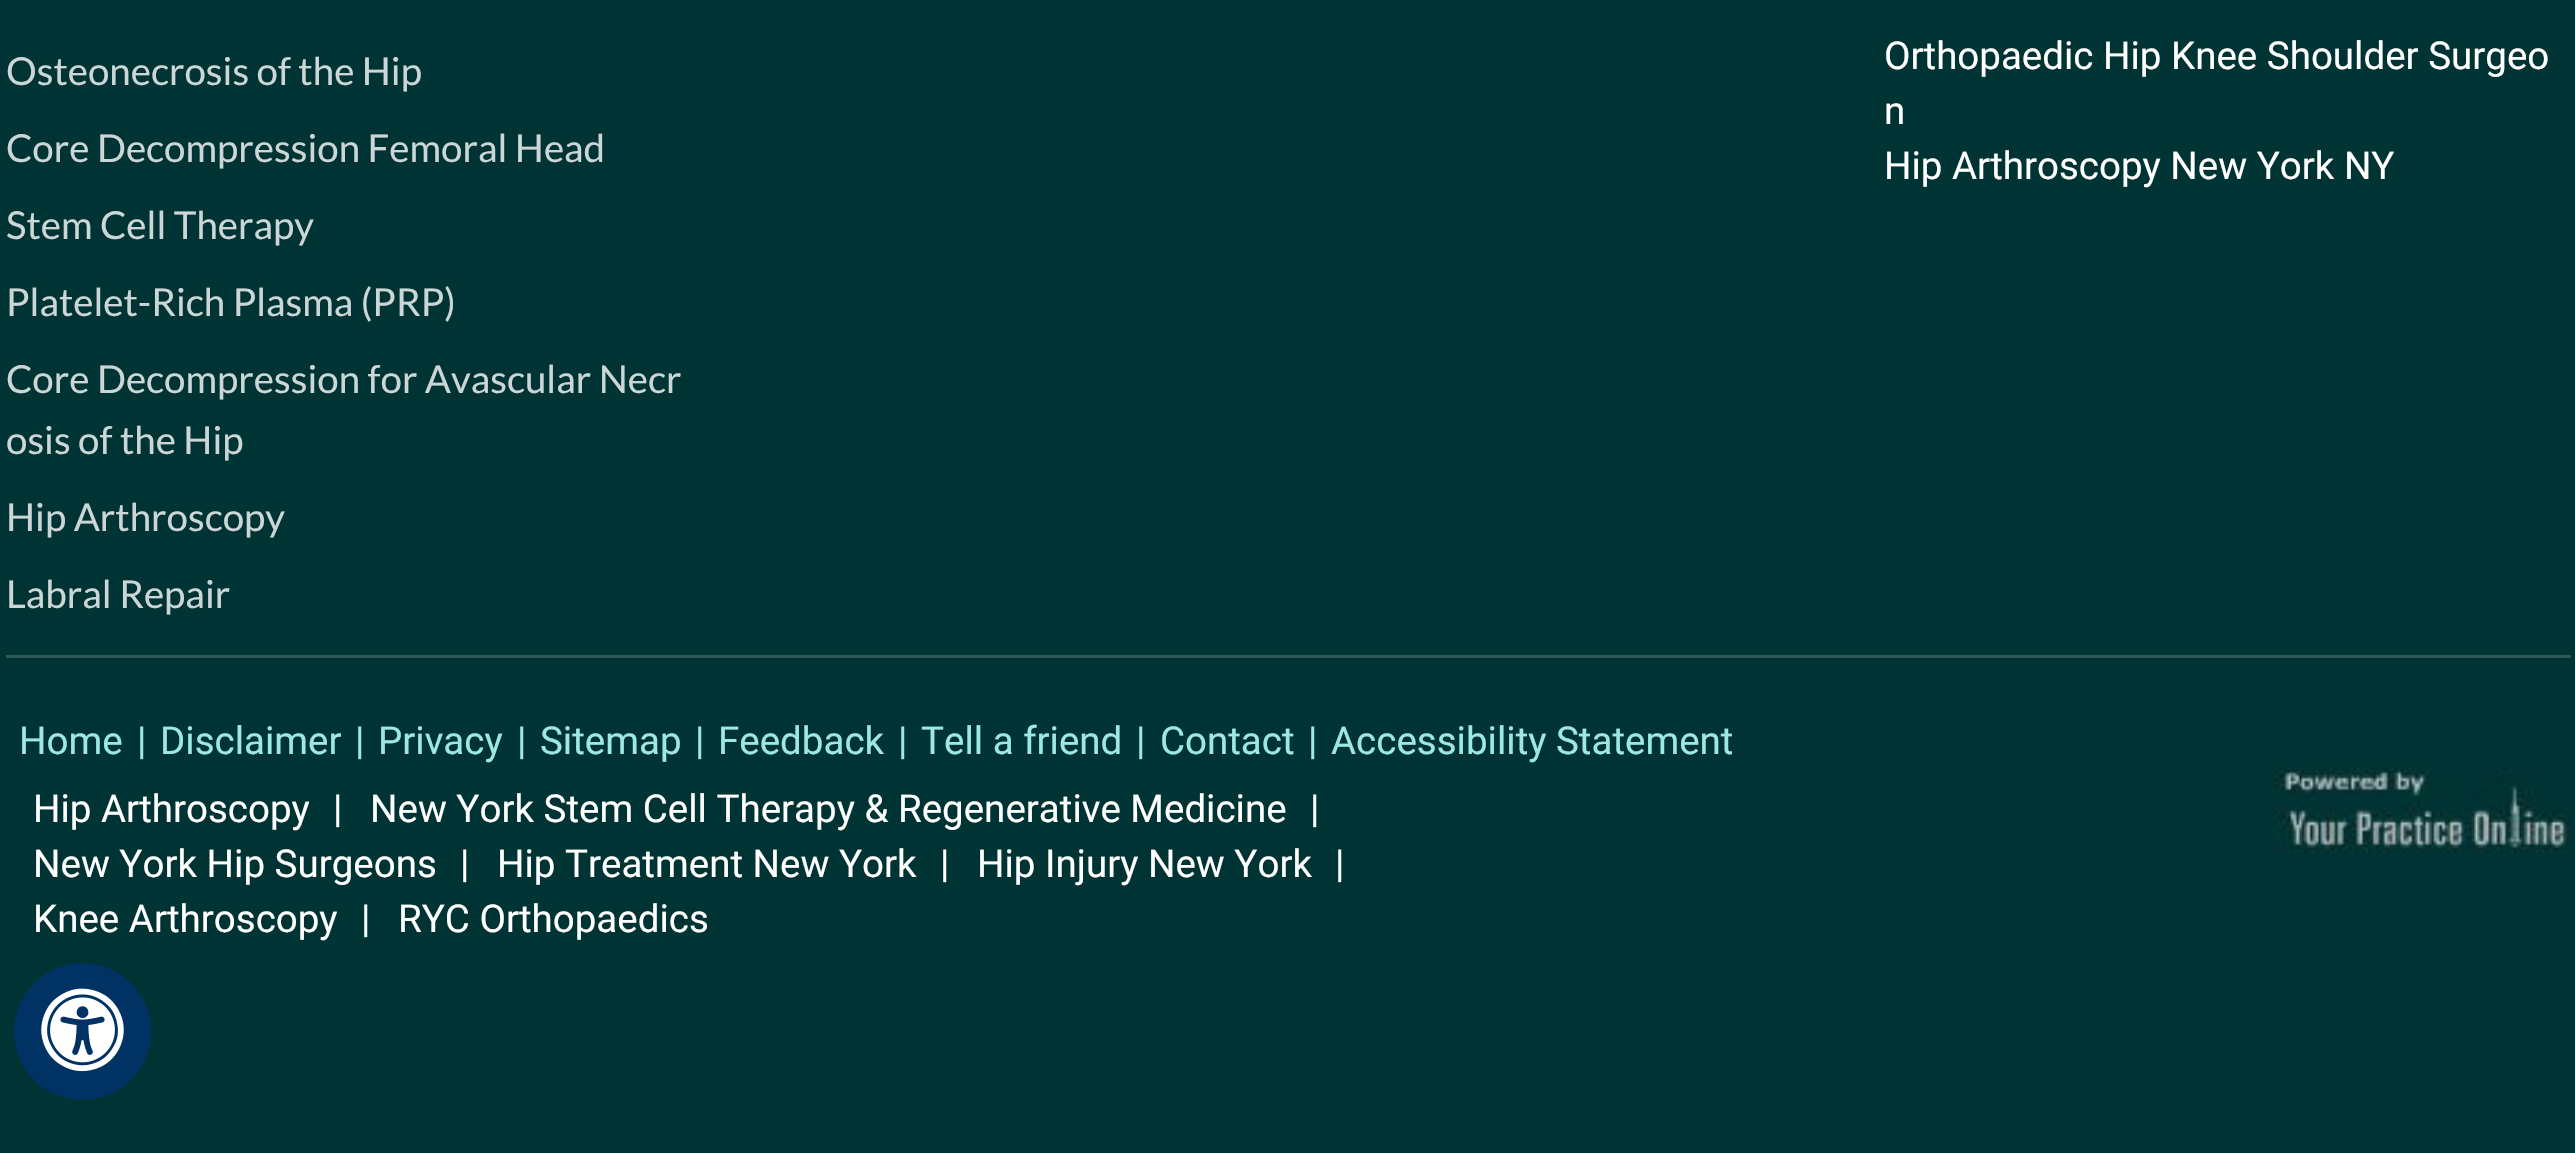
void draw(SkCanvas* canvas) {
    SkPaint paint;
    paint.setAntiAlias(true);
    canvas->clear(0xFF003333);
    paint.setColor(0xFF2E5757);
    canvas->drawRect(SkRect::MakeXYWH(6, 655, 2565, 3), paint);
    SkFont font1(fontMgr->matchFamilyStyle("Lato", SkFontStyle::Normal()), 38.5f);
    font1.setSubpixel(true);
    paint.setColor(0xFFCCD6D6);
    canvas->drawString("Osteonecrosis of the Hip", 6, 85, font1, paint);
    canvas->drawString("Core Decompression Femoral Head", 6, 162, font1, paint);
    canvas->drawString("Stem Cell Therapy", 6, 239, font1, paint);
    canvas->drawString("Platelet-Rich Plasma (PRP)", 6, 316, font1, paint);
    canvas->drawString("Core Decompression for Avascular Necr", 6, 393, font1, paint);
    canvas->drawString("osis of the Hip", 6, 454, font1, paint);
    canvas->drawString("Hip Arthroscopy", 6, 531, font1, paint);
    canvas->drawString("Labral Repair", 6, 608, font1, paint);
    SkFont font2(fontMgr->matchFamilyStyle("Roboto", SkFontStyle::Normal()), 38.5f);
    font2.setSubpixel(true);
    paint.setColor(0xFFFFFFFF);
    canvas->drawString("Orthopaedic Hip Knee Shoulder Surgeo", 1884, 69, font2, paint);
    canvas->drawString("n", 1884, 124, font2, paint);
    canvas->drawString("Hip Arthroscopy New York NY", 1884, 179, font2, paint);
    paint.setColor(0xFF9DE7E7);
    canvas->drawString("Home", 19, 754, font2, paint);
    canvas->drawString("|", 137, 754, font2, paint);
    canvas->drawString("Disclaimer", 160, 754, font2, paint);
    canvas->drawString("|", 355, 754, font2, paint);
    canvas->drawString("Privacy", 378, 754, font2, paint);
    canvas->drawString("|", 517, 754, font2, paint);
    canvas->drawString("Sitemap", 540, 754, font2, paint);
    canvas->drawString("|", 695, 754, font2, paint);
    canvas->drawString("Feedback", 718, 754, font2, paint);
    canvas->drawString("|", 898, 754, font2, paint);
    canvas->drawString("Tell a friend", 921, 754, font2, paint);
    canvas->drawString("|", 1136, 754, font2, paint);
    canvas->drawString("Contact", 1160, 754, font2, paint);
    canvas->drawString("|", 1308, 754, font2, paint);
    canvas->drawString("Accessibility Statement", 1331, 754, font2, paint);
    paint.setColor(0xFFFFFFFF);
    canvas->drawString("Hip Arthroscopy", 33, 822, font2, paint);
    canvas->drawString("|", 333, 822, font2, paint);
    canvas->drawString("New York Stem Cell Therapy & Regenerative Medicine", 370, 822, font2, paint);
    canvas->drawString("|", 1310, 822, font2, paint);
    canvas->drawString("New York Hip Surgeons", 33, 877, font2, paint);
    canvas->drawString("|", 460, 877, font2, paint);
    canvas->drawString("Hip Treatment New York", 497, 877, font2, paint);
    canvas->drawString("|", 940, 877, font2, paint);
    canvas->drawString("Hip Injury New York", 977, 877, font2, paint);
    canvas->drawString("|", 1335, 877, font2, paint);
    canvas->drawString("Knee Arthroscopy", 33, 932, font2, paint);
    canvas->drawString("|", 361, 932, font2, paint);
    canvas->drawString("RYC Orthopaedics", 398, 932, font2, paint);
    canvas->drawImageRect(SkImages::DeferredFromEncodedData(SkData::MakeFromFileName("img1.png")), SkRect::MakeXYWH(2274, 767, 297, 86), SkSamplingOptions());
    paint.setColor(0xFF003263);
    canvas->drawCircle(82.5f, 1031.5f, 68.5f, paint);
    canvas->drawImageRect(SkImages::DeferredFromEncodedData(SkData::MakeFromFileName("img2.png")), SkRect::MakeXYWH(41, 988, 83, 84), SkSamplingOptions());
}
